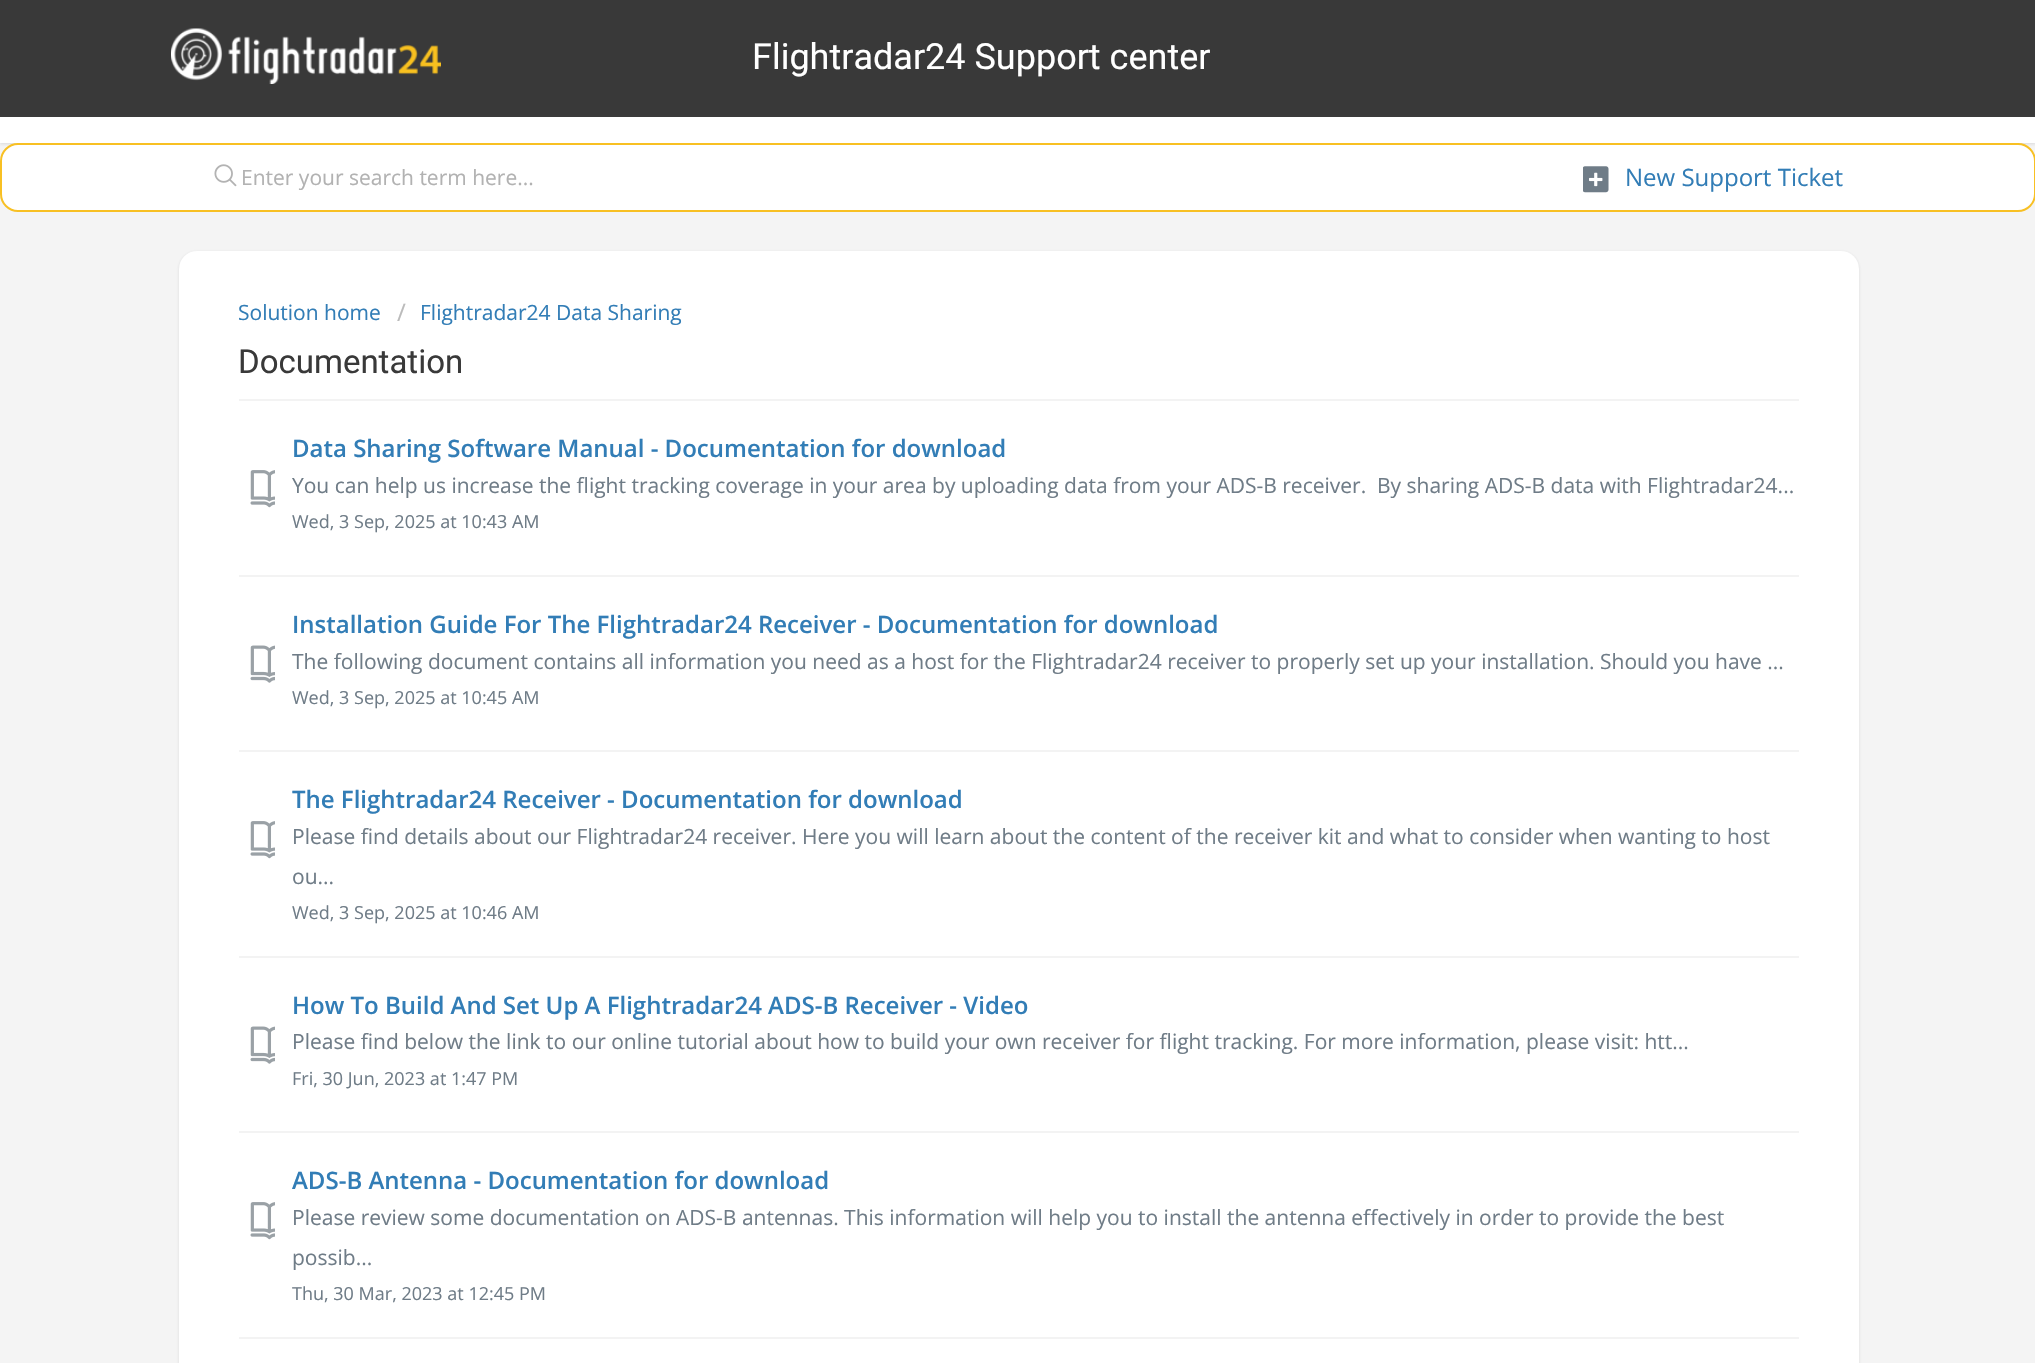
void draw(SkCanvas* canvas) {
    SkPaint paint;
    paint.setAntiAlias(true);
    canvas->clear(0xFFF4F4F4);
    paint.setColor(0xFF393939);
    canvas->drawRect(SkRect::MakeXYWH(0, 0, 2035, 117), paint);
    canvas->drawImageRect(SkImages::DeferredFromEncodedData(SkData::MakeFromFileName("img1.png")), SkRect::MakeXYWH(171, 28, 270, 56), SkSamplingOptions());
    SkFont font1(fontMgr->matchFamilyStyle("Roboto", SkFontStyle::Normal()), 36);
    font1.setSubpixel(true);
    paint.setColor(0xFFFFFFFF);
    canvas->drawString("Flightradar24 Support center", 752, 69, font1, paint);
    paint.setColor(0x263F3F44);
    paint.setMaskFilter(SkMaskFilter::MakeBlur(kNormal_SkBlurStyle, 1.5f));
    canvas->drawRect(SkRect::MakeXYWH(0, 119, 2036, 25), paint);
    paint.setMaskFilter(nullptr);
    paint.setColor(0xFFFFFFFF);
    canvas->drawRect(SkRect::MakeXYWH(0, 117, 2035, 26), paint);
    canvas->drawRoundRect(SkRect::MakeXYWH(1, 144, 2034, 67), 17, 17, paint);
    paint.setStyle(SkPaint::kStroke_Style);
    paint.setStrokeWidth(2);
    paint.setColor(0xFFF8C023);
    canvas->drawRoundRect(SkRect::MakeXYWH(1, 144, 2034, 67), 17, 17, paint);
    canvas->drawImageRect(SkImages::DeferredFromEncodedData(SkData::MakeFromFileName("img2.png")), SkRect::MakeXYWH(214, 164, 23, 23), SkSamplingOptions());
    SkFont font2(fontMgr->matchFamilyStyle("Open Sans", SkFontStyle::Normal()), 21);
    font2.setSubpixel(true);
    paint.setStyle(SkPaint::kFill_Style);
    paint.setColor(0xFFB2B2B2);
    canvas->drawString("Enter your search term here...", 241, 185, font2, paint);
    canvas->drawImageRect(SkImages::DeferredFromEncodedData(SkData::MakeFromFileName("img3.png")), SkRect::MakeXYWH(1583, 166, 26, 27), SkSamplingOptions());
    SkFont font3(fontMgr->matchFamilyStyle("Open Sans", SkFontStyle::Normal()), 24);
    font3.setSubpixel(true);
    paint.setColor(0xFF327DB6);
    canvas->drawString("New Support Ticket", 1625, 186, font3, paint);
    paint.setColor(0x263F3F44);
    paint.setMaskFilter(SkMaskFilter::MakeBlur(kNormal_SkBlurStyle, 1.5f));
    canvas->drawRoundRect(SkRect::MakeXYWH(179, 252, 1680, 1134), 18, 18, paint);
    paint.setMaskFilter(nullptr);
    paint.setColor(0xFFFFFFFF);
    canvas->drawRoundRect(SkRect::MakeXYWH(179, 251, 1680, 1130), 18, 18, paint);
    paint.setColor(0xFF327DB6);
    canvas->drawString("Solution home", 238, 320, font2, paint);
    paint.setColor(0xFFBBBBBB);
    canvas->drawString("/", 397, 321, font3, paint);
    paint.setColor(0xFF327DB6);
    canvas->drawString("Flightradar24 Data Sharing", 420, 320, font2, paint);
    SkFont font4(fontMgr->matchFamilyStyle("Roboto", SkFontStyle::Normal()), 33);
    font4.setSubpixel(true);
    paint.setColor(0xFF393939);
    canvas->drawString("Documentation", 238, 373, font4, paint);
    paint.setColor(0xFFF3F3F3);
    canvas->drawRect(SkRect::MakeXYWH(239, 399, 1560, 2), paint);
    SkFont font5(fontMgr->matchFamilyStyle("Open Sans", SkFontStyle(600, SkFontStyle::kNormal_Width, SkFontStyle::kUpright_Slant)), 24);
    font5.setSubpixel(true);
    paint.setColor(0xFF327DB6);
    canvas->drawString("Data Sharing Software Manual - Documentation for download", 292, 457, font5, paint);
    canvas->drawImageRect(SkImages::DeferredFromEncodedData(SkData::MakeFromFileName("img4.png")), SkRect::MakeXYWH(250, 470, 25, 38), SkSamplingOptions());
    paint.setColor(0xFF6F7C87);
    canvas->drawString("You can help us increase the flight tracking coverage in your area by uploading data from your ADS-B receiver.", 292, 493, font2, paint);
    canvas->drawString("By sharing ADS-B data with Flightradar24...", 1377, 493, font2, paint);
    SkFont font6(fontMgr->matchFamilyStyle("Open Sans", SkFontStyle::Normal()), 18);
    font6.setSubpixel(true);
    canvas->drawString("Wed, 3 Sep, 2025 at 10:43 AM", 292, 528, font6, paint);
    paint.setColor(0xFFF3F3F3);
    canvas->drawRect(SkRect::MakeXYWH(239, 575, 1560, 2), paint);
    paint.setColor(0xFF327DB6);
    canvas->drawString("Installation Guide For The Flightradar24 Receiver - Documentation for download", 292, 633, font5, paint);
    canvas->drawImageRect(SkImages::DeferredFromEncodedData(SkData::MakeFromFileName("img5.png")), SkRect::MakeXYWH(250, 645, 25, 38), SkSamplingOptions());
    paint.setColor(0xFF6F7C87);
    canvas->drawString("The following document contains all information you need as a host for the Flightradar24 receiver to properly set up your installation. Should you have ...", 292, 669, font2, paint);
    canvas->drawString("Wed, 3 Sep, 2025 at 10:45 AM", 292, 704, font6, paint);
    paint.setColor(0xFFF3F3F3);
    canvas->drawRect(SkRect::MakeXYWH(239, 750, 1560, 2), paint);
    paint.setColor(0xFF327DB6);
    canvas->drawString("The Flightradar24 Receiver - Documentation for download", 292, 808, font5, paint);
    canvas->drawImageRect(SkImages::DeferredFromEncodedData(SkData::MakeFromFileName("img4.png")), SkRect::MakeXYWH(250, 821, 25, 38), SkSamplingOptions());
    paint.setColor(0xFF6F7C87);
    canvas->drawString("Please find details about our Flightradar24 receiver. Here you will learn about the content of the receiver kit and what to consider when wanting to host", 292, 844, font2, paint);
    canvas->drawString("ou...", 292, 884, font2, paint);
    canvas->drawString("Wed, 3 Sep, 2025 at 10:46 AM", 292, 919, font6, paint);
    paint.setColor(0xFFF3F3F3);
    canvas->drawRect(SkRect::MakeXYWH(239, 956, 1560, 2), paint);
    paint.setColor(0xFF327DB6);
    canvas->drawString("How To Build And Set Up A Flightradar24 ADS-B Receiver - Video", 292, 1014, font5, paint);
    canvas->drawImageRect(SkImages::DeferredFromEncodedData(SkData::MakeFromFileName("img5.png")), SkRect::MakeXYWH(250, 1026, 25, 38), SkSamplingOptions());
    paint.setColor(0xFF6F7C87);
    canvas->drawString("Please find below the link to our online tutorial about how to build your own receiver for flight tracking. For more information, please visit: htt...", 292, 1049, font2, paint);
    canvas->drawString("Fri, 30 Jun, 2023 at 1:47 PM", 292, 1085, font6, paint);
    paint.setColor(0xFFF3F3F3);
    canvas->drawRect(SkRect::MakeXYWH(239, 1131, 1560, 2), paint);
    paint.setColor(0xFF327DB6);
    canvas->drawString("ADS-B Antenna - Documentation for download", 292, 1189, font5, paint);
    canvas->drawImageRect(SkImages::DeferredFromEncodedData(SkData::MakeFromFileName("img4.png")), SkRect::MakeXYWH(250, 1202, 25, 38), SkSamplingOptions());
    paint.setColor(0xFF6F7C87);
    canvas->drawString("Please review some documentation on ADS-B antennas. This information will help you to install the antenna effectively in order to provide the best", 292, 1225, font2, paint);
    canvas->drawString("possib...", 292, 1265, font2, paint);
    canvas->drawString("Thu, 30 Mar, 2023 at 12:45 PM", 292, 1300, font6, paint);
    paint.setColor(0xFFF3F3F3);
    canvas->drawRect(SkRect::MakeXYWH(239, 1337, 1560, 2), paint);
}
